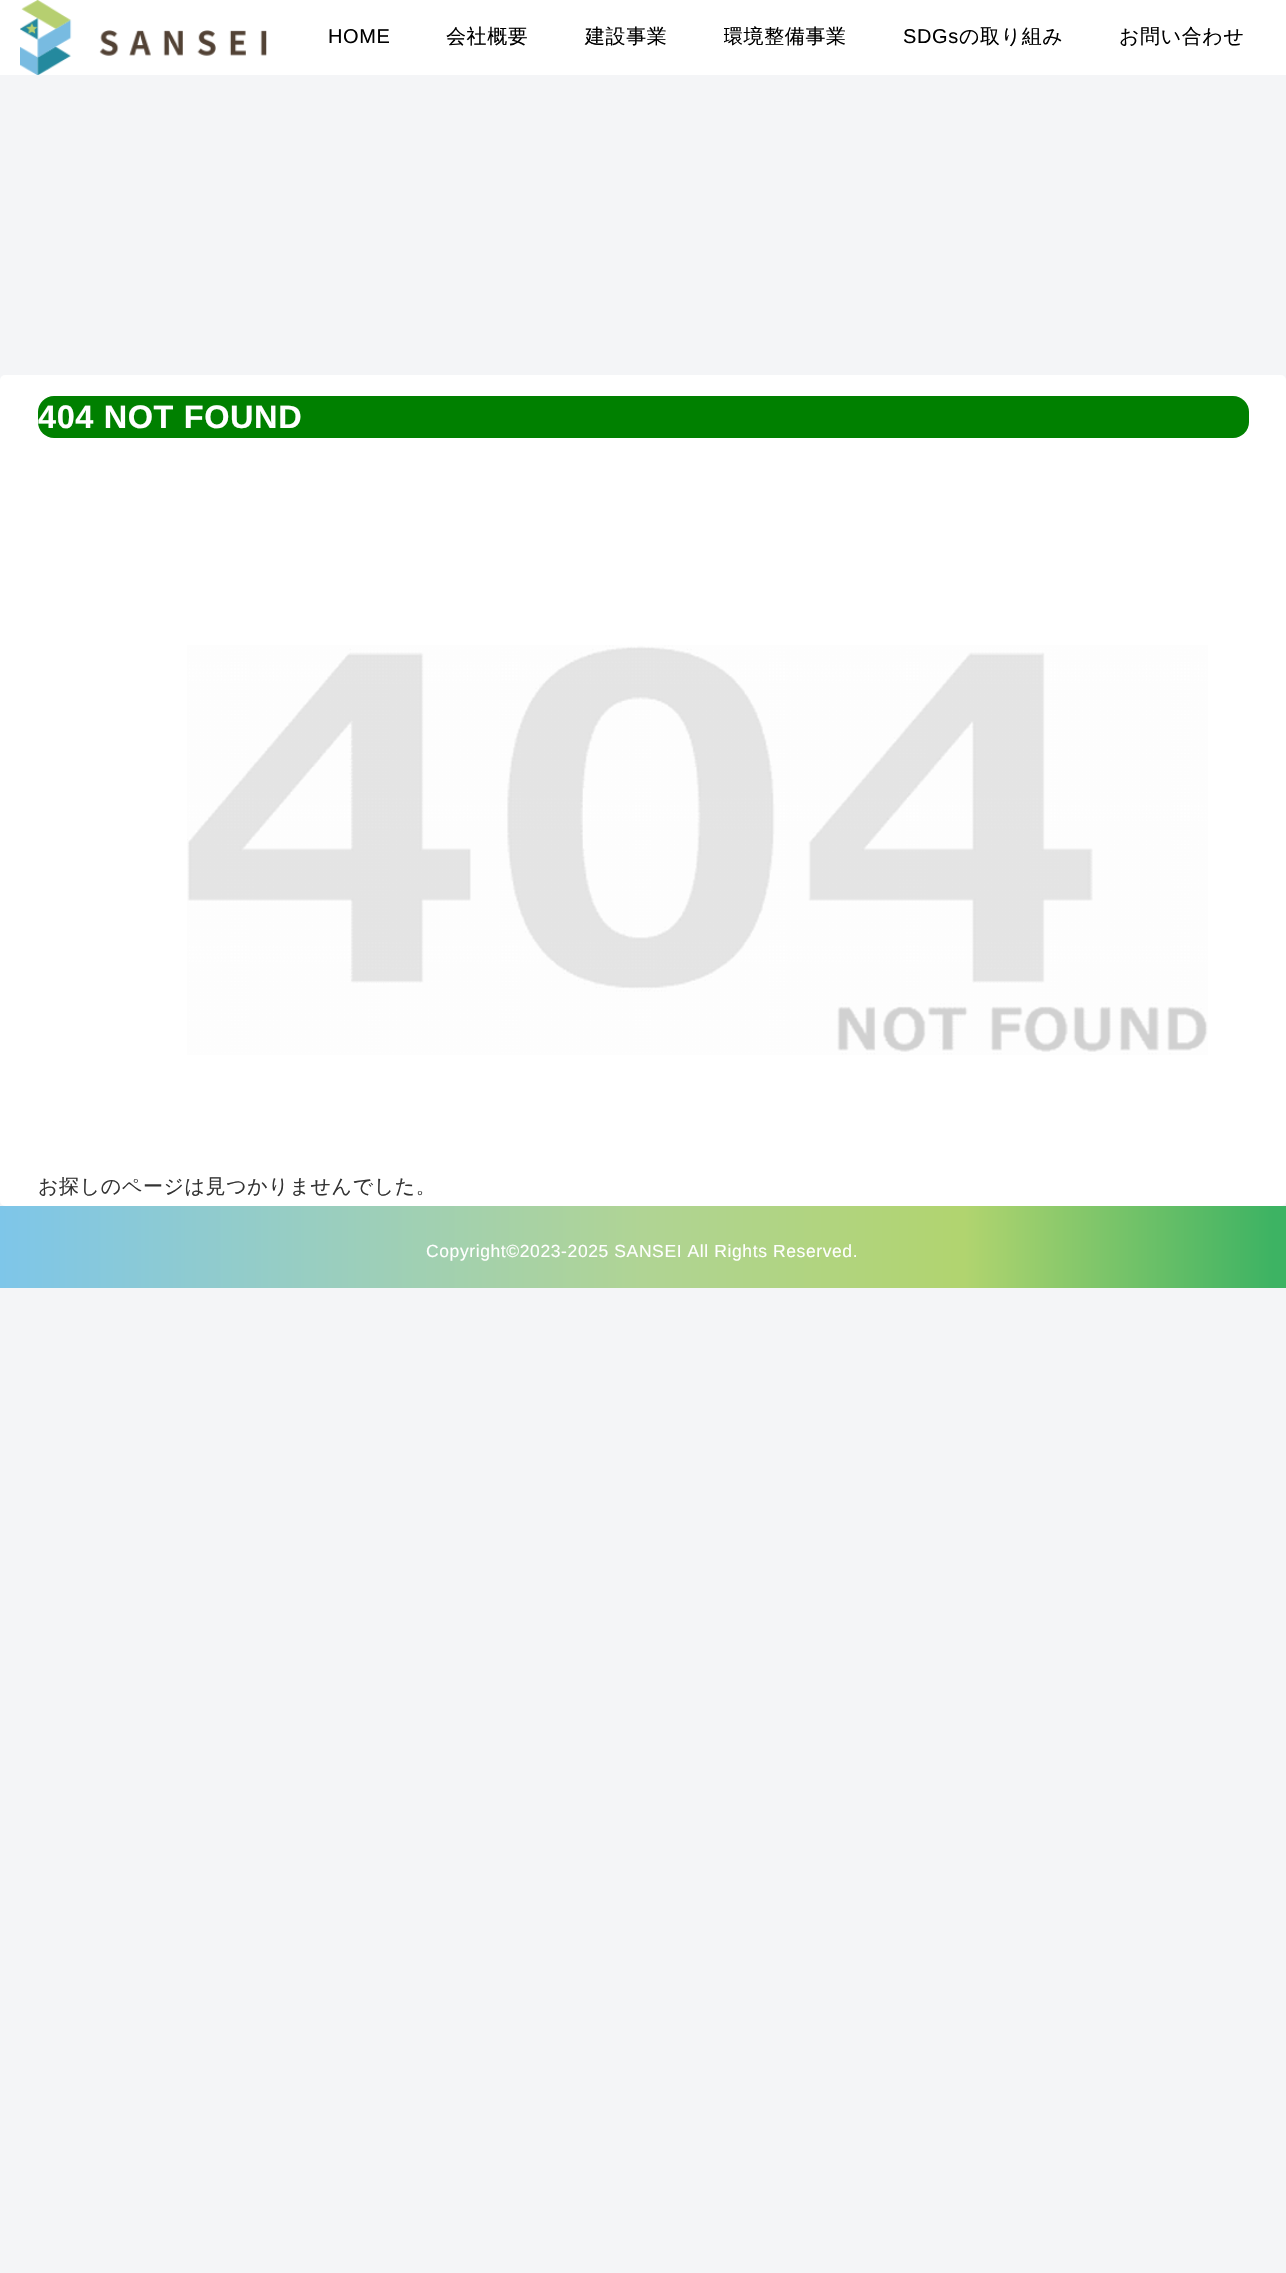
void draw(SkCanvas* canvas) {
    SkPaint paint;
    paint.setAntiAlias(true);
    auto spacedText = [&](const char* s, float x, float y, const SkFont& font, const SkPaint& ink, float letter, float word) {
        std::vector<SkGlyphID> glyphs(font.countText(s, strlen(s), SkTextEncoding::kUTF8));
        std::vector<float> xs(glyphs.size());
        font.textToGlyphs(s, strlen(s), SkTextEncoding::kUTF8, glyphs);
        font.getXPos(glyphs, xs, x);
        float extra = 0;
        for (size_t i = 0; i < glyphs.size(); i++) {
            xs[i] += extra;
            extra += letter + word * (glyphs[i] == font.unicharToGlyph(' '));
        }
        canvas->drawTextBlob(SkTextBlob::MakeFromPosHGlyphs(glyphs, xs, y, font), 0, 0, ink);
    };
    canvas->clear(0xFFF4F5F7);
    paint.setColor(0xFFFFFFFF);
    canvas->drawRect(SkRect::MakeXYWH(0, 0, 1286, 75), paint);
    canvas->drawImageRect(SkImages::DeferredFromEncodedData(SkData::MakeFromFileName("img1.png")), SkRect::MakeXYWH(20, 0, 247, 75), SkSamplingOptions());
    SkFont font1(fontMgr->matchFamilyStyle("Liberation Sans", SkFontStyle::Normal()), 20);
    font1.setSubpixel(true);
    paint.setColor(0xFF000000);
    spacedText("HOME", 328, 43, font1, paint, 0.6f, 0);
    SkFont font2(fontMgr->matchFamilyStyle("WenQuanYi Zen Hei", SkFontStyle(500, SkFontStyle::kNormal_Width, SkFontStyle::kUpright_Slant)), 20);
    font2.setSubpixel(true);
    spacedText("会社概要", 446, 43, font2, paint, 0.6f, 0);
    spacedText("建設事業", 585, 43, font2, paint, 0.6f, 0);
    canvas->save();
    canvas->clipRect(SkRect::MakeXYWH(724, 20, 124, 35));
    spacedText("環境整備事業", 723, 43, font2, paint, 0.6f, 0);
    canvas->restore();
    spacedText("SDGs", 903, 43, font1, paint, 0.6f, 0);
    spacedText("の取り組み", 959, 43, font2, paint, 0.6f, 0);
    spacedText("お問い合わせ", 1119, 43, font2, paint, 0.6f, 0);
    paint.setColor(0xFFFFFFFF);
    canvas->drawRoundRect(SkRect::MakeXYWH(0, 375, 1286, 831), 5, 5, paint);
    paint.setColor(0xFF008000);
    canvas->drawRoundRect(SkRect::MakeXYWH(38, 396, 1211, 42), 16, 16, paint);
    SkFont font3(fontMgr->matchFamilyStyle("Liberation Sans", SkFontStyle::Bold()), 32.5f);
    font3.setSubpixel(true);
    paint.setColor(0xFFFFFFFF);
    spacedText("404 NOT FOUND", 38, 428, font3, paint, 0.6f, 0);
    canvas->drawImageRect(SkImages::DeferredFromEncodedData(SkData::MakeFromFileName("img2.png")), SkRect::MakeXYWH(187, 645, 1021, 410), SkSamplingOptions());
    paint.setColor(0xFF333333);
    spacedText("お探しのページは見つかりませんでした。", 38, 1193, font2, paint, 0.6f, 0);
    {
        const SkColor colors[] = {0xFF7EC6E9, 0xFF99CEC0, 0xFFB0D494, 0xFFB1D46F, 0xFF3DB363};
        const float stops[] = {0, 0.25f, 0.5f, 0.75f, 0.99f};
        const SkPoint ends[] = {{0, 1247}, {1286, 1247}};
        paint.setShader(SkGradientShader::MakeLinear(ends, colors, stops, 5, SkTileMode::kClamp));
        paint.setAlpha(255);
    }
    canvas->drawRect(SkRect::MakeXYWH(0, 1206, 1286, 82), paint);
    SkFont font4(fontMgr->matchFamilyStyle("Liberation Sans", SkFontStyle::Normal()), 17.5f);
    font4.setSubpixel(true);
    paint.setShader(nullptr);
    paint.setColor(0xFFFFFFFF);
    spacedText("Copyright©2023-2025 SANSEI All Rights Reserved.", 426, 1257, font4, paint, 0.6f, 0);
}
